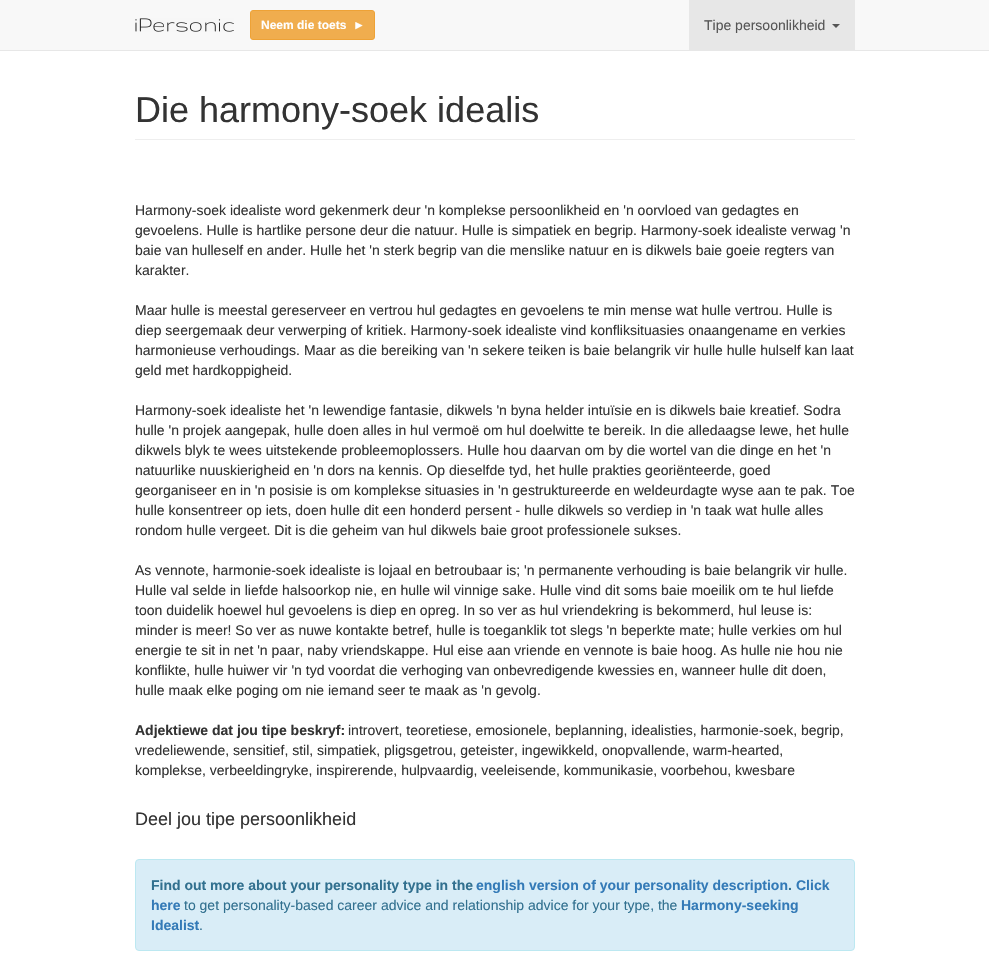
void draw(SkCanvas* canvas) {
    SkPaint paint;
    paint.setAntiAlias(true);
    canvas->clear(0xFFFFFFFF);
    paint.setColor(0xFFF8F8F8);
    canvas->drawRect(SkRect::MakeXYWH(0, 0, 989, 50), paint);
    paint.setColor(0xFFE7E7E7);
    canvas->drawRect(SkRect::MakeXYWH(0, 50, 989, 1), paint);
    canvas->drawImageRect(SkImages::DeferredFromEncodedData(SkData::MakeFromFileName("img1.png")), SkRect::MakeXYWH(135, 18, 99, 14), SkSamplingOptions());
    paint.setColor(0xFFF0AD4E);
    canvas->drawRoundRect(SkRect::MakeXYWH(250.5f, 10.5f, 124, 29), 2.5f, 2.5f, paint);
    paint.setStyle(SkPaint::kStroke_Style);
    paint.setStrokeWidth(1);
    paint.setColor(0xFFEEA236);
    canvas->drawRoundRect(SkRect::MakeXYWH(250.5f, 10.5f, 124, 29), 2.5f, 2.5f, paint);
    SkFont font1(fontMgr->matchFamilyStyle("Liberation Sans", SkFontStyle::Bold()), 12);
    font1.setSubpixel(true);
    paint.setStyle(SkPaint::kFill_Style);
    paint.setColor(0xFFFFFFFF);
    canvas->drawString("Neem die toets  ►", 261, 29, font1, paint);
    paint.setColor(0xFFE7E7E7);
    canvas->drawRect(SkRect::MakeXYWH(689, 0, 166, 50), paint);
    SkFont font2(fontMgr->matchFamilyStyle("Liberation Sans", SkFontStyle::Normal()), 14);
    font2.setSubpixel(true);
    paint.setColor(0xFF555555);
    canvas->drawString("Tipe persoonlikheid", 704, 30, font2, paint);
    canvas->drawPath(SkPathBuilder().moveTo(832, 24).lineTo(840, 24).lineTo(836, 28).close().detach(), paint);
    paint.setColor(0xFFEEEEEE);
    canvas->drawRect(SkRect::MakeXYWH(135, 139, 720, 1), paint);
    SkFont font3(fontMgr->matchFamilyStyle("Liberation Sans", SkFontStyle::Normal()), 36);
    font3.setSubpixel(true);
    paint.setColor(0xFF333333);
    canvas->drawString("Die harmony-soek idealis", 135, 122, font3, paint);
    canvas->drawString("Harmony-soek idealiste word gekenmerk deur 'n komplekse persoonlikheid en 'n oorvloed van gedagtes en", 135, 215, font2, paint);
    canvas->drawString("gevoelens. Hulle is hartlike persone deur die natuur. Hulle is simpatiek en begrip. Harmony-soek idealiste verwag 'n", 135, 235, font2, paint);
    canvas->drawString("baie van hulleself en ander. Hulle het 'n sterk begrip van die menslike natuur en is dikwels baie goeie regters van", 135, 255, font2, paint);
    canvas->drawString("karakter.", 135, 275, font2, paint);
    canvas->drawString("Maar hulle is meestal gereserveer en vertrou hul gedagtes en gevoelens te min mense wat hulle vertrou. Hulle is", 135, 315, font2, paint);
    canvas->drawString("diep seergemaak deur verwerping of kritiek. Harmony-soek idealiste vind konfliksituasies onaangename en verkies", 135, 335, font2, paint);
    canvas->drawString("harmonieuse verhoudings. Maar as die bereiking van 'n sekere teiken is baie belangrik vir hulle hulle hulself kan laat", 135, 355, font2, paint);
    canvas->drawString("geld met hardkoppigheid.", 135, 375, font2, paint);
    canvas->drawString("Harmony-soek idealiste het 'n lewendige fantasie, dikwels 'n byna helder intuïsie en is dikwels baie kreatief. Sodra", 135, 415, font2, paint);
    canvas->drawString("hulle 'n projek aangepak, hulle doen alles in hul vermoë om hul doelwitte te bereik. In die alledaagse lewe, het hulle", 135, 435, font2, paint);
    canvas->drawString("dikwels blyk te wees uitstekende probleemoplossers. Hulle hou daarvan om by die wortel van die dinge en het 'n", 135, 455, font2, paint);
    canvas->drawString("natuurlike nuuskierigheid en 'n dors na kennis. Op dieselfde tyd, het hulle prakties georiënteerde, goed", 135, 475, font2, paint);
    canvas->drawString("georganiseer en in 'n posisie is om komplekse situasies in 'n gestruktureerde en weldeurdagte wyse aan te pak. Toe", 135, 495, font2, paint);
    canvas->drawString("hulle konsentreer op iets, doen hulle dit een honderd persent - hulle dikwels so verdiep in 'n taak wat hulle alles", 135, 515, font2, paint);
    canvas->drawString("rondom hulle vergeet. Dit is die geheim van hul dikwels baie groot professionele sukses.", 135, 535, font2, paint);
    canvas->drawString("As vennote, harmonie-soek idealiste is lojaal en betroubaar is; 'n permanente verhouding is baie belangrik vir hulle.", 135, 575, font2, paint);
    canvas->drawString("Hulle val selde in liefde halsoorkop nie, en hulle wil vinnige sake. Hulle vind dit soms baie moeilik om te hul liefde", 135, 595, font2, paint);
    canvas->drawString("toon duidelik hoewel hul gevoelens is diep en opreg. In so ver as hul vriendekring is bekommerd, hul leuse is:", 135, 615, font2, paint);
    canvas->drawString("minder is meer! So ver as nuwe kontakte betref, hulle is toeganklik tot slegs 'n beperkte mate; hulle verkies om hul", 135, 635, font2, paint);
    canvas->drawString("energie te sit in net 'n paar, naby vriendskappe. Hul eise aan vriende en vennote is baie hoog. As hulle nie hou nie", 135, 655, font2, paint);
    canvas->drawString("konflikte, hulle huiwer vir 'n tyd voordat die verhoging van onbevredigende kwessies en, wanneer hulle dit doen,", 135, 675, font2, paint);
    canvas->drawString("hulle maak elke poging om nie iemand seer te maak as 'n gevolg.", 135, 695, font2, paint);
    SkFont font4(fontMgr->matchFamilyStyle("Liberation Sans", SkFontStyle::Bold()), 14);
    font4.setSubpixel(true);
    canvas->drawString("Adjektiewe dat jou tipe beskryf:", 135, 735, font4, paint);
    canvas->drawString("introvert, teoretiese, emosionele, beplanning, idealisties, harmonie-soek, begrip,", 348, 735, font2, paint);
    canvas->drawString("vredeliewende, sensitief, stil, simpatiek, pligsgetrou, geteister, ingewikkeld, onopvallende, warm-hearted,", 135, 755, font2, paint);
    canvas->drawString("komplekse, verbeeldingryke, inspirerende, hulpvaardig, veeleisende, kommunikasie, voorbehou, kwesbare", 135, 775, font2, paint);
    SkFont font5(fontMgr->matchFamilyStyle("Liberation Sans", SkFontStyle::Normal()), 18);
    font5.setSubpixel(true);
    canvas->drawString("Deel jou tipe persoonlikheid", 135, 825, font5, paint);
    paint.setColor(0xFFD9EDF7);
    canvas->drawRoundRect(SkRect::MakeXYWH(135.5f, 859.5f, 719, 91), 3.5f, 3.5f, paint);
    paint.setStyle(SkPaint::kStroke_Style);
    paint.setColor(0xFFBCE8F1);
    canvas->drawRoundRect(SkRect::MakeXYWH(135.5f, 859.5f, 719, 91), 3.5f, 3.5f, paint);
    paint.setStyle(SkPaint::kFill_Style);
    paint.setColor(0xFF31708F);
    canvas->drawString("Find out more about your personality type in the", 151, 890, font4, paint);
    paint.setColor(0xFF337AB7);
    canvas->drawString("english version of your personality description", 476, 890, font4, paint);
    paint.setColor(0xFF31708F);
    canvas->drawString(".", 788, 890, font4, paint);
    paint.setColor(0xFF337AB7);
    canvas->drawString("Click", 796, 890, font4, paint);
    canvas->drawString("here", 151, 910, font4, paint);
    paint.setColor(0xFF31708F);
    canvas->drawString("to get personality-based career advice and relationship advice for your type, the", 184, 910, font2, paint);
    paint.setColor(0xFF337AB7);
    canvas->drawString("Harmony-seeking", 681, 910, font4, paint);
    canvas->drawString("Idealist", 151, 930, font4, paint);
    paint.setColor(0xFF31708F);
    canvas->drawString(".", 199, 930, font2, paint);
}
